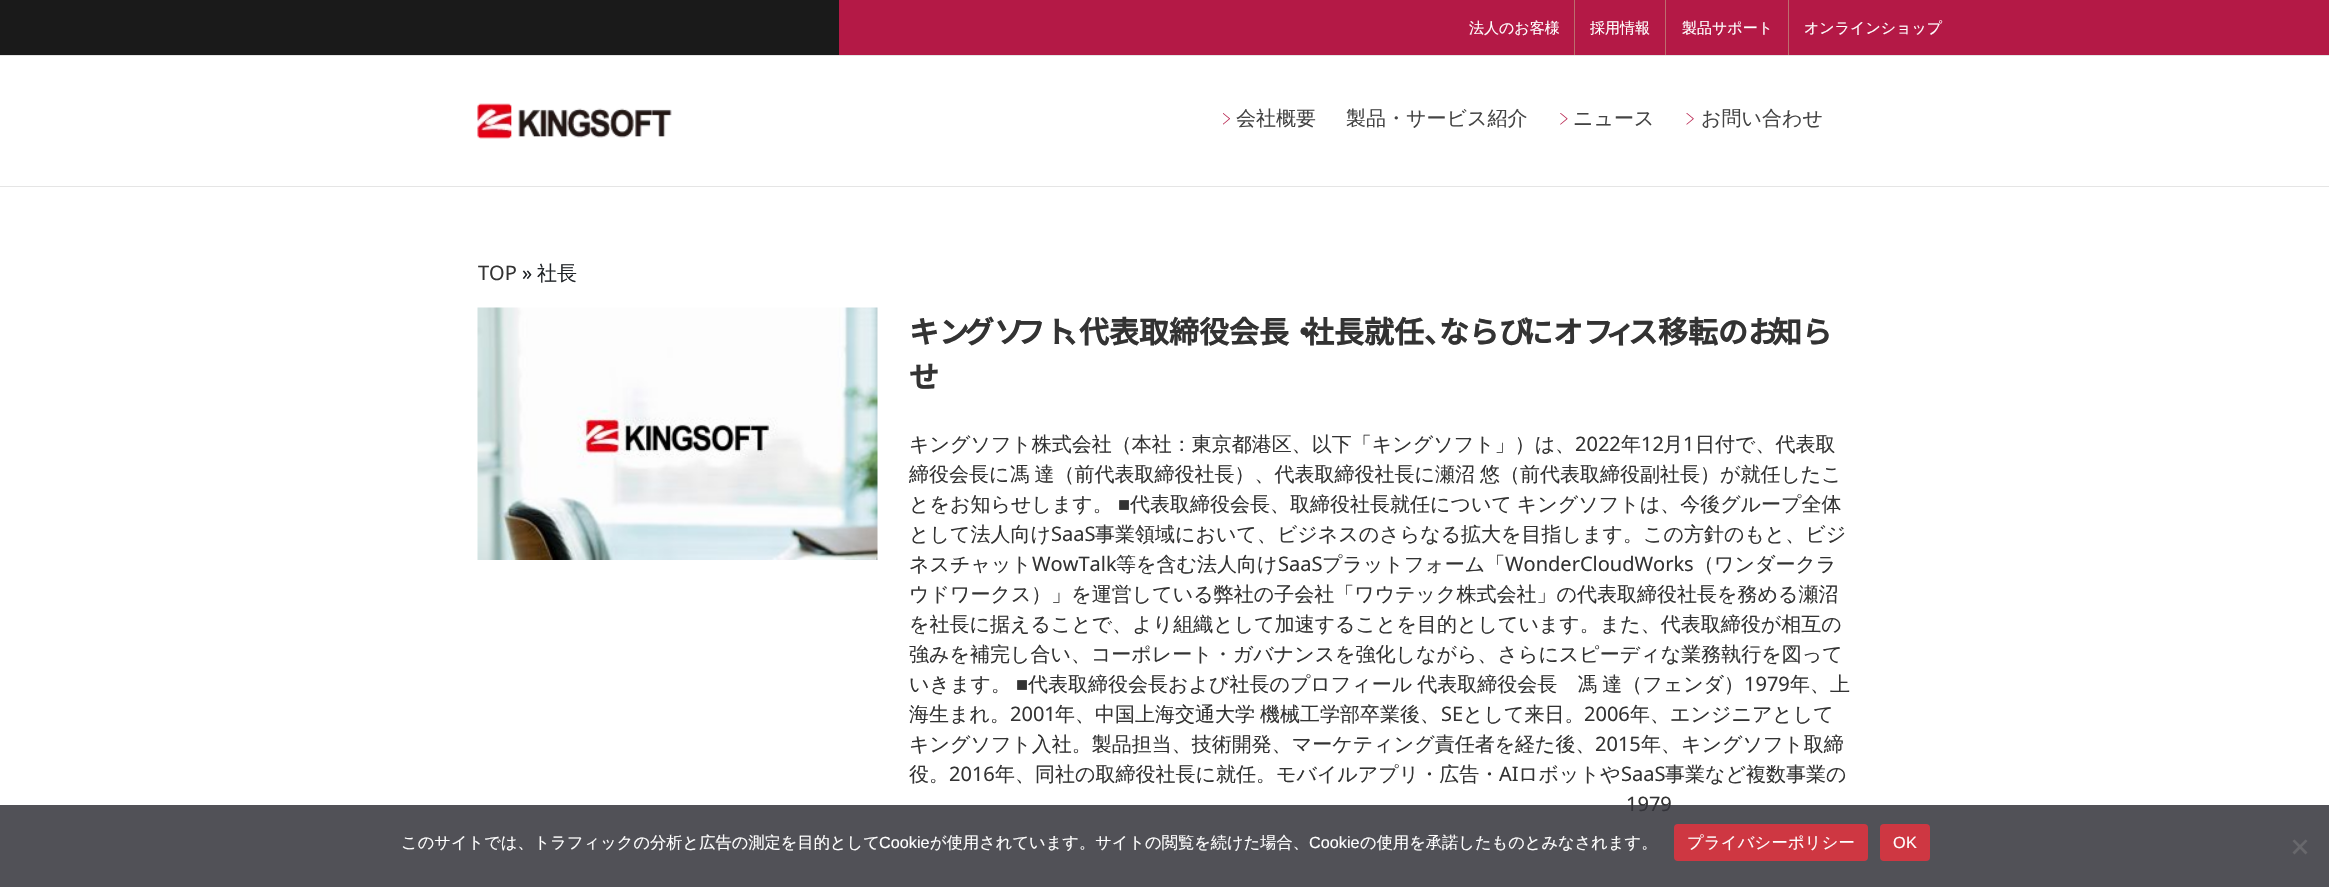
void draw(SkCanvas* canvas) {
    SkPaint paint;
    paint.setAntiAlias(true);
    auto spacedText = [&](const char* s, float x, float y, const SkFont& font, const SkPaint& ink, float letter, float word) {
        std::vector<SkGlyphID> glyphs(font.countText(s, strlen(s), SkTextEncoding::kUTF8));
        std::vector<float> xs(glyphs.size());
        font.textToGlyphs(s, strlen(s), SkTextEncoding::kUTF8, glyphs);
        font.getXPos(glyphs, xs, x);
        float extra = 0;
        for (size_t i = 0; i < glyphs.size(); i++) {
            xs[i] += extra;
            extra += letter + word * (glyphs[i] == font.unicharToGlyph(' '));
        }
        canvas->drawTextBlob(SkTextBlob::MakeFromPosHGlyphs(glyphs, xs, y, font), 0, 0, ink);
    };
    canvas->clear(0xFFFFFFFF);
    paint.setColor(0xFF1A1A1A);
    canvas->drawRect(SkRect::MakeXYWH(0, 0, 839, 55), paint);
    paint.setColor(0xFFE5E5E5);
    canvas->drawRect(SkRect::MakeXYWH(0, 55, 2329, 1), paint);
    paint.setColor(0xFFB41946);
    canvas->drawRect(SkRect::MakeXYWH(839, 0, 1490, 55), paint);
    paint.setColor(0xFFBC6E6E);
    canvas->drawRect(SkRect::MakeXYWH(1574, 0, 1, 55), paint);
    SkFont font1(fontMgr->matchFamilyStyle("WenQuanYi Zen Hei", SkFontStyle(500, SkFontStyle::kNormal_Width, SkFontStyle::kUpright_Slant)), 15);
    font1.setSubpixel(true);
    paint.setColor(0xFFFFFFFF);
    canvas->drawString("法人のお客様", 1469, 33, font1, paint);
    paint.setColor(0xFFBC6E6E);
    canvas->drawRect(SkRect::MakeXYWH(1665, 0, 1, 55), paint);
    paint.setColor(0xFFFFFFFF);
    canvas->drawString("採用情報", 1590, 33, font1, paint);
    paint.setColor(0xFFBC6E6E);
    canvas->drawRect(SkRect::MakeXYWH(1788, 0, 1, 55), paint);
    paint.setColor(0xFFFFFFFF);
    canvas->drawString("製品サポート", 1682, 33, font1, paint);
    canvas->drawString("オンラインショップ", 1804, 33, font1, paint);
    paint.setColor(0xFFE5E5E5);
    canvas->drawRect(SkRect::MakeXYWH(0, 186, 2329, 1), paint);
    canvas->drawImageRect(SkImages::DeferredFromEncodedData(SkData::MakeFromFileName("img1.png")), SkRect::MakeXYWH(477, 103, 195, 36), SkSamplingOptions());
    canvas->drawImageRect(SkImages::DeferredFromEncodedData(SkData::MakeFromFileName("img2.png")), SkRect::MakeXYWH(1223, 113, 7, 12), SkSamplingOptions());
    SkFont font2(fontMgr->matchFamilyStyle("WenQuanYi Zen Hei", SkFontStyle(500, SkFontStyle::kNormal_Width, SkFontStyle::kUpright_Slant)), 20);
    font2.setSubpixel(true);
    paint.setColor(0xFF444444);
    canvas->drawString("会社概要", 1236, 125, font2, paint);
    canvas->drawString("製品・サービス紹介", 1346, 125, font2, paint);
    canvas->drawImageRect(SkImages::DeferredFromEncodedData(SkData::MakeFromFileName("img3.png")), SkRect::MakeXYWH(1560, 113, 8, 12), SkSamplingOptions());
    canvas->drawString("ニュース", 1573, 125, font2, paint);
    canvas->drawImageRect(SkImages::DeferredFromEncodedData(SkData::MakeFromFileName("img4.png")), SkRect::MakeXYWH(1686, 113, 8, 12), SkSamplingOptions());
    canvas->drawString("お問い合わせ", 1701, 125, font2, paint);
    SkFont font3(fontMgr->matchFamilyStyle("Noto Sans", SkFontStyle::Normal()), 20);
    font3.setSubpixel(true);
    paint.setColor(0xFF333333);
    canvas->drawString("TOP", 478, 280, font3, paint);
    paint.setColor(0xFF212529);
    canvas->drawString("»", 522, 280, font3, paint);
    canvas->drawString("社長", 537, 280, font2, paint);
    canvas->drawImageRect(SkImages::DeferredFromEncodedData(SkData::MakeFromFileName("img5.png")), SkRect::MakeXYWH(477, 307, 401, 253), SkSamplingOptions());
    SkFont font4(fontMgr->matchFamilyStyle("Noto Sans JP", SkFontStyle::Bold()), 30);
    font4.setSubpixel(true);
    paint.setColor(0xFF333333);
    canvas->drawString("キン", 909, 343, font4, paint);
    canvas->drawString("グソ", 964, 343, font4, paint);
    canvas->drawString("フト", 1015, 343, font4, paint);
    canvas->drawString("、", 1064, 343, font4, paint);
    canvas->drawString("代表取締役会長・", 1079, 343, font4, paint);
    canvas->drawString("社長就任、", 1304, 343, font4, paint);
    canvas->drawString("ならび", 1439, 343, font4, paint);
    canvas->drawString("にオフ", 1523, 343, font4, paint);
    canvas->drawString("ィ", 1605, 343, font4, paint);
    canvas->drawString("ス移転のお", 1628, 343, font4, paint);
    canvas->drawString("知ら", 1772, 343, font4, paint);
    canvas->drawString("せ", 909, 388, font4, paint);
    canvas->drawString("キングソフト株式会社（本社：東京都港区、以下「キングソフト」）は、", 909, 451, font2, paint);
    canvas->drawString("2022", 1575, 451, font3, paint);
    canvas->drawString("年", 1621, 451, font2, paint);
    canvas->drawString("12", 1641, 451, font3, paint);
    canvas->drawString("月", 1663, 451, font2, paint);
    canvas->drawString("1", 1683, 451, font3, paint);
    canvas->drawString("日付で、代表取", 1695, 451, font2, paint);
    spacedText("締役会長に馮 達（前代表取締役社長）、代表取締役社長に瀬沼 悠（前代表取締役副社長）が就任したこ", 909, 481, font2, paint, 0, -1);
    canvas->drawString("とをお知らせします。", 909, 511, font2, paint);
    SkFont font5(fontMgr->matchFamilyStyle("Liberation Sans", SkFontStyle::Normal()), 20);
    font5.setSubpixel(true);
    canvas->drawString("■", 1118, 511, font5, paint);
    spacedText("代表取締役会長、取締役社長就任について キングソフトは、今後グループ全体", 1130, 511, font2, paint, 0, -1);
    canvas->drawString("として法人向け", 909, 541, font2, paint);
    canvas->drawString("SaaS", 1051, 541, font3, paint);
    canvas->drawString("事業領域において、ビジネスのさらなる拡大を目指します。この方針のもと、ビジ", 1095, 541, font2, paint);
    canvas->drawString("ネスチャット", 909, 571, font2, paint);
    canvas->drawString("WowTalk", 1032, 571, font3, paint);
    canvas->drawString("等を含む法人向け", 1116, 571, font2, paint);
    canvas->drawString("SaaS", 1278, 571, font3, paint);
    canvas->drawString("プラットフォーム「", 1322, 571, font2, paint);
    canvas->drawString("WonderCloudWorks", 1505, 571, font3, paint);
    canvas->drawString("（ワンダークラ", 1694, 571, font2, paint);
    canvas->drawString("ウドワークス）」を運営している弊社の子会社「ワウテック株式会社」の代表取締役社長を務める瀬沼", 909, 601, font2, paint);
    canvas->drawString("を社長に据えることで、より組織として加速することを目的としています。また、代表取締役が相互の", 909, 631, font2, paint);
    canvas->drawString("強みを補完し合い、コーポレート・ガバナンスを強化しながら、さらにスピーディな業務執行を図って", 909, 661, font2, paint);
    canvas->drawString("いきます。", 909, 691, font2, paint);
    canvas->drawString("■", 1016, 691, font5, paint);
    spacedText("代表取締役会長および社長のプロフィール 代表取締役会長　馮 達（フェンダ）", 1028, 691, font2, paint, 0, -1);
    canvas->drawString("1979", 1744, 691, font3, paint);
    canvas->drawString("年、上", 1790, 691, font2, paint);
    canvas->drawString("海生まれ。", 909, 721, font2, paint);
    canvas->drawString("2001", 1010, 721, font3, paint);
    spacedText("年、中国上海交通大学 機械工学部卒業後、", 1055, 721, font2, paint, 0, -1);
    canvas->drawString("SE", 1441, 721, font3, paint);
    canvas->drawString("として来日。", 1463, 721, font2, paint);
    canvas->drawString("2006", 1584, 721, font3, paint);
    canvas->drawString("年、エンジニアとして", 1630, 721, font2, paint);
    canvas->drawString("キングソフト入社。製品担当、技術開発、マーケティング責任者を経た後、", 909, 751, font2, paint);
    canvas->drawString("2015", 1595, 751, font3, paint);
    canvas->drawString("年、キングソフト取締", 1641, 751, font2, paint);
    canvas->drawString("役。", 909, 781, font2, paint);
    canvas->drawString("2016", 949, 781, font3, paint);
    canvas->drawString("年、同社の取締役社長に就任。モバイルアプリ・広告・", 995, 781, font2, paint);
    canvas->drawString("AI", 1499, 781, font3, paint);
    canvas->drawString("ロボットや", 1518, 781, font2, paint);
    canvas->drawString("SaaS", 1621, 781, font3, paint);
    canvas->drawString("事業など複数事業の", 1665, 781, font2, paint);
    canvas->drawString("1979", 1626, 811, font3, paint);
    paint.setColor(0xD932323A);
    canvas->drawRect(SkRect::MakeXYWH(0, 805, 2329, 82), paint);
    SkFont font6(fontMgr->matchFamilyStyle("WenQuanYi Zen Hei", SkFontStyle(500, SkFontStyle::kNormal_Width, SkFontStyle::kUpright_Slant)), 16.25f);
    font6.setSubpixel(true);
    paint.setColor(0xFFFFFFFF);
    canvas->drawString("このサイトでは、トラフィックの分析と広告の測定を目的として", 401, 848, font6, paint);
    SkFont font7(fontMgr->matchFamilyStyle("Liberation Sans", SkFontStyle::Normal()), 16.25f);
    font7.setSubpixel(true);
    canvas->drawString("Cookie", 879, 848, font7, paint);
    canvas->drawString("が使用されています。サイトの閲覧を続けた場合、", 930, 848, font6, paint);
    canvas->drawString("Cookie", 1309, 848, font7, paint);
    canvas->drawString("の使用を承諾したものとみなされます。", 1360, 848, font6, paint);
    paint.setColor(0xFFCE3742);
    canvas->drawRoundRect(SkRect::MakeXYWH(1674, 824, 194, 37), 4, 4, paint);
    paint.setColor(0xFFFFFFFF);
    spacedText("プライバシーポリシー", 1687, 848, font6, paint, 0.25f, 0);
    paint.setColor(0xFFCE3742);
    canvas->drawRoundRect(SkRect::MakeXYWH(1880, 824, 50, 37), 4, 4, paint);
    paint.setColor(0xFFFFFFFF);
    spacedText("OK", 1893, 848, font7, paint, 0.25f, 0);
    paint.setColor(0xFF68686C);
    canvas->drawPath(SkPathBuilder().moveTo(2305.5f, 839.5f).lineTo(2307.5f, 841).lineTo(2294.5f, 854.5f).lineTo(2292.5f, 852.5f).close().detach(), paint);
    canvas->drawPath(SkPathBuilder().moveTo(2292.5f, 841).lineTo(2294.5f, 839.5f).lineTo(2307.5f, 852.5f).lineTo(2305.5f, 854.5f).close().detach(), paint);
}
